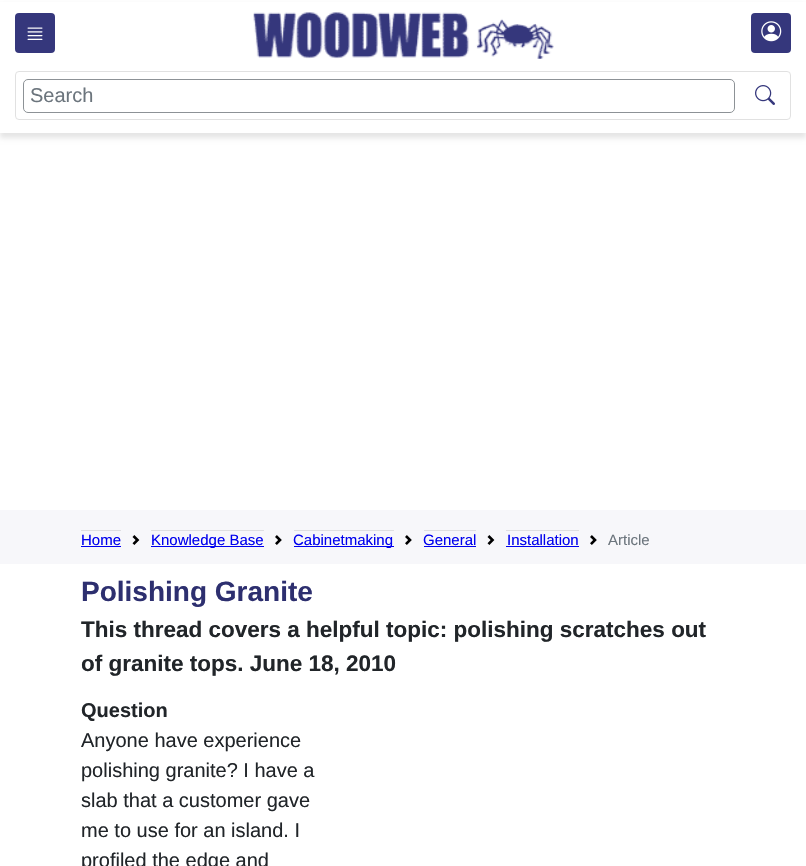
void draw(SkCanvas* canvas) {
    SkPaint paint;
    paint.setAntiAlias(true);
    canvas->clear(0xFFFFFFFF);
    paint.setColor(0x1A000000);
    paint.setMaskFilter(SkMaskFilter::MakeBlur(kNormal_SkBlurStyle, 2.5f));
    canvas->drawRect(SkRect::MakeXYWH(0, 5, 806, 133), paint);
    paint.setMaskFilter(nullptr);
    paint.setColor(0xFFFFFFFF);
    canvas->drawRect(SkRect::MakeXYWH(0, 2, 806, 131), paint);
    paint.setColor(0xFF35377C);
    canvas->drawRoundRect(SkRect::MakeXYWH(15, 13, 40, 40), 4, 4, paint);
    canvas->drawImageRect(SkImages::DeferredFromEncodedData(SkData::MakeFromFileName("img1.png")), SkRect::MakeXYWH(27, 27, 16, 13), SkSamplingOptions());
    canvas->drawImageRect(SkImages::DeferredFromEncodedData(SkData::MakeFromFileName("img2.png")), SkRect::MakeXYWH(253, 12, 301, 47), SkSamplingOptions());
    canvas->drawRoundRect(SkRect::MakeXYWH(751, 13, 40, 40), 4, 4, paint);
    canvas->drawImageRect(SkImages::DeferredFromEncodedData(SkData::MakeFromFileName("img3.png")), SkRect::MakeXYWH(761, 21, 21, 21), SkSamplingOptions());
    paint.setStyle(SkPaint::kStroke_Style);
    paint.setStrokeWidth(1);
    paint.setColor(0xFFE1E1E1);
    canvas->drawRoundRect(SkRect::MakeXYWH(15.5f, 71.5f, 775, 48), 3.5f, 3.5f, paint);
    paint.setColor(0xFF8D9296);
    canvas->drawRoundRect(SkRect::MakeXYWH(23.5f, 79.5f, 711, 33), 4.5f, 4.5f, paint);
    SkFont font1(fontMgr->matchFamilyStyle("Liberation Sans", SkFontStyle::Normal()), 20);
    font1.setSubpixel(true);
    paint.setStyle(SkPaint::kFill_Style);
    paint.setColor(0xFF6C757D);
    canvas->drawString("Search", 30, 102, font1, paint);
    canvas->drawImageRect(SkImages::DeferredFromEncodedData(SkData::MakeFromFileName("img4.png")), SkRect::MakeXYWH(755, 85, 20, 20), SkSamplingOptions());
    paint.setColor(0xFFF7F7FA);
    canvas->drawRect(SkRect::MakeXYWH(0, 510, 806, 54), paint);
    SkFont font2(fontMgr->matchFamilyStyle("Liberation Sans", SkFontStyle::Normal()), 15);
    font2.setSubpixel(true);
    paint.setColor(0xFF0000EE);
    canvas->drawString("Home", 81, 545, font2, paint);
    paint.setColor(0xFFDEDEE1);
    canvas->drawRect(SkRect::MakeXYWH(81, 530, 40, 1), paint);
    paint.setColor(0xFF0000EE);
    canvas->drawRect(SkRect::MakeXYWH(81, 546, 40, 1), paint);
    canvas->drawImageRect(SkImages::DeferredFromEncodedData(SkData::MakeFromFileName("img5.png")), SkRect::MakeXYWH(132, 535, 8, 10), SkSamplingOptions());
    canvas->drawRect(SkRect::MakeXYWH(151, 546, 113, 1), paint);
    canvas->drawString("Knowledge Base", 151, 545, font2, paint);
    paint.setColor(0xFFDEDEE1);
    canvas->drawRect(SkRect::MakeXYWH(151, 530, 113, 1), paint);
    canvas->drawImageRect(SkImages::DeferredFromEncodedData(SkData::MakeFromFileName("img6.png")), SkRect::MakeXYWH(275, 535, 7, 10), SkSamplingOptions());
    paint.setColor(0xFF0000EE);
    canvas->drawRect(SkRect::MakeXYWH(294, 546, 100, 1), paint);
    canvas->drawString("Cabinetmaking", 293, 545, font2, paint);
    paint.setColor(0xFFDEDEE1);
    canvas->drawRect(SkRect::MakeXYWH(294, 530, 100, 1), paint);
    canvas->drawImageRect(SkImages::DeferredFromEncodedData(SkData::MakeFromFileName("img6.png")), SkRect::MakeXYWH(405, 535, 7, 10), SkSamplingOptions());
    paint.setColor(0xFF0000EE);
    canvas->drawString("General", 423, 545, font2, paint);
    paint.setColor(0xFFDEDEE1);
    canvas->drawRect(SkRect::MakeXYWH(424, 530, 52, 1), paint);
    paint.setColor(0xFF0000EE);
    canvas->drawRect(SkRect::MakeXYWH(424, 546, 52, 1), paint);
    canvas->drawImageRect(SkImages::DeferredFromEncodedData(SkData::MakeFromFileName("img5.png")), SkRect::MakeXYWH(487, 535, 8, 10), SkSamplingOptions());
    canvas->drawString("Installation", 507, 545, font2, paint);
    paint.setColor(0xFFDEDEE1);
    canvas->drawRect(SkRect::MakeXYWH(506, 530, 73, 1), paint);
    paint.setColor(0xFF0000EE);
    canvas->drawRect(SkRect::MakeXYWH(506, 546, 73, 1), paint);
    canvas->drawImageRect(SkImages::DeferredFromEncodedData(SkData::MakeFromFileName("img6.png")), SkRect::MakeXYWH(590, 535, 7, 10), SkSamplingOptions());
    paint.setColor(0xFF6C757D);
    canvas->drawString("Article", 608, 545, font2, paint);
    SkFont font3(fontMgr->matchFamilyStyle("Liberation Sans", SkFontStyle::Bold()), 28);
    font3.setSubpixel(true);
    paint.setColor(0xFF2D2F6F);
    canvas->drawString("Polishing Granite", 81, 601, font3, paint);
    SkFont font4(fontMgr->matchFamilyStyle("Liberation Sans", SkFontStyle::Bold()), 22.5f);
    font4.setSubpixel(true);
    paint.setColor(0xFF212529);
    canvas->drawString("This thread covers a helpful topic: polishing scratches out", 81, 637, font4, paint);
    canvas->drawString("of granite tops. June 18, 2010", 81, 671, font4, paint);
    SkFont font5(fontMgr->matchFamilyStyle("Liberation Sans", SkFontStyle::Bold()), 20);
    font5.setSubpixel(true);
    canvas->drawString("Question", 81, 717, font5, paint);
    canvas->drawString("Anyone have experience", 81, 747, font1, paint);
    canvas->drawString("polishing granite? I have a", 81, 777, font1, paint);
    canvas->drawString("slab that a customer gave", 81, 807, font1, paint);
    canvas->drawString("me to use for an island. I", 81, 837, font1, paint);
    canvas->drawString("profiled the edge and", 81, 867, font1, paint);
}
